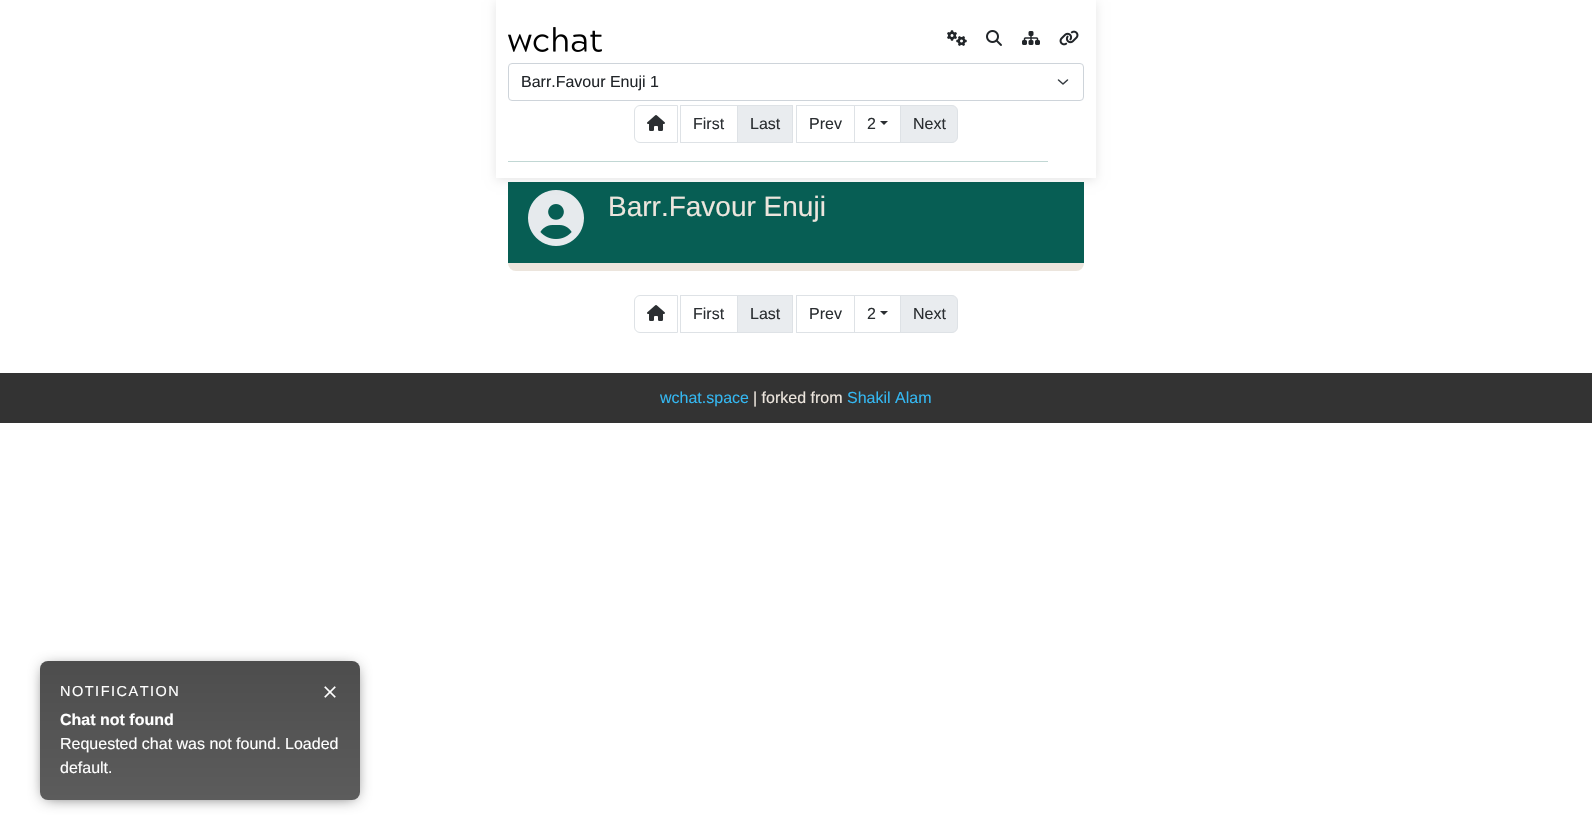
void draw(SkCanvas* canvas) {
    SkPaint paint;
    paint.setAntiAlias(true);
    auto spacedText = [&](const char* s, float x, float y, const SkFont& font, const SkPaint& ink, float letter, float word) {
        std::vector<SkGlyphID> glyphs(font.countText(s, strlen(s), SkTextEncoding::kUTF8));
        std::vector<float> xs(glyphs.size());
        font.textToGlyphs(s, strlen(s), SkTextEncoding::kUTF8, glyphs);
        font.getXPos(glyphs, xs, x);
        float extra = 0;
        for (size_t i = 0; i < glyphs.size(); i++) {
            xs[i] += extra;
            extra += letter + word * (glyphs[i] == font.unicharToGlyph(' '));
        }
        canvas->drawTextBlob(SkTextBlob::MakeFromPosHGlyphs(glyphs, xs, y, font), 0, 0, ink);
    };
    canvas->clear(0xFFFFFFFF);
    paint.setColor(0xFFECE5DD);
    canvas->drawRoundRect(SkRect::MakeXYWH(508, 182, 576, 89), 8, 8, paint);
    paint.setColor(0xFF075E54);
    canvas->drawRect(SkRect::MakeXYWH(508, 182, 576, 81), paint);
    canvas->drawImageRect(SkImages::DeferredFromEncodedData(SkData::MakeFromFileName("img7.png")), SkRect::MakeXYWH(528, 190, 56, 56), SkSamplingOptions());
    canvas->save();
    canvas->clipPath(SkPathBuilder(SkPathFillType::kEvenOdd).moveTo(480, 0).lineTo(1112, 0).lineTo(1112, 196).lineTo(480, 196).close().moveTo(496, 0).lineTo(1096, 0).lineTo(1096, 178).lineTo(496, 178).close().detach(), true);
    paint.setColor(0x1A000000);
    paint.setMaskFilter(SkMaskFilter::MakeBlur(kNormal_SkBlurStyle, 5));
    canvas->drawRect(SkRect::MakeXYWH(496, 2, 600, 178), paint);
    paint.setMaskFilter(nullptr);
    canvas->restore();
    canvas->drawImageRect(SkImages::DeferredFromEncodedData(SkData::MakeFromFileName("img1.png")), SkRect::MakeXYWH(508, 27, 94, 25), SkSamplingOptions());
    canvas->drawImageRect(SkImages::DeferredFromEncodedData(SkData::MakeFromFileName("img2.png")), SkRect::MakeXYWH(947, 30, 20, 16), SkSamplingOptions());
    canvas->drawImageRect(SkImages::DeferredFromEncodedData(SkData::MakeFromFileName("img3.png")), SkRect::MakeXYWH(986, 30, 16, 16), SkSamplingOptions());
    canvas->drawImageRect(SkImages::DeferredFromEncodedData(SkData::MakeFromFileName("img4.png")), SkRect::MakeXYWH(1022, 31, 18, 14), SkSamplingOptions());
    canvas->drawImageRect(SkImages::DeferredFromEncodedData(SkData::MakeFromFileName("img5.png")), SkRect::MakeXYWH(1059, 30, 20, 16), SkSamplingOptions());
    paint.setStyle(SkPaint::kStroke_Style);
    paint.setStrokeWidth(1.5f);
    paint.setStrokeCap(SkPaint::kRound_Cap);
    paint.setStrokeJoin(SkPaint::kRound_Join);
    paint.setColor(0xFF343A40);
    canvas->drawPath(SkPathBuilder().moveTo(1058.5f, 80).lineTo(1063, 84).lineTo(1067.5f, 80).detach(), paint);
    paint.setStrokeWidth(1);
    paint.setStrokeCap(SkPaint::kButt_Cap);
    paint.setStrokeJoin(SkPaint::kMiter_Join);
    paint.setColor(0xFFCED4DA);
    canvas->drawRoundRect(SkRect::MakeXYWH(508.5f, 63.5f, 575, 37), 3.5f, 3.5f, paint);
    SkFont font1(fontMgr->matchFamilyStyle("Liberation Sans", SkFontStyle::Normal()), 16);
    font1.setSubpixel(true);
    paint.setStyle(SkPaint::kFill_Style);
    paint.setColor(0xFF212529);
    canvas->drawString("Barr.Favour Enuji 1", 521, 87, font1, paint);
    paint.setStyle(SkPaint::kStroke_Style);
    paint.setColor(0xFFDEE2E6);
    canvas->drawPath(SkPathBuilder().moveTo(640, 105.5f).lineTo(677.5f, 105.5f).lineTo(677.5f, 142.5f).lineTo(640, 142.5f).cubicTo(637, 142.5f, 634.5f, 140, 634.5f, 137).lineTo(634.5f, 111).cubicTo(634.5f, 108, 637, 105.5f, 640, 105.5f).close().detach(), paint);
    canvas->drawImageRect(SkImages::DeferredFromEncodedData(SkData::MakeFromFileName("img6.png")), SkRect::MakeXYWH(647, 115, 18, 16), SkSamplingOptions());
    canvas->drawRect(SkRect::MakeXYWH(680.5f, 105.5f, 57, 37), paint);
    paint.setStyle(SkPaint::kFill_Style);
    paint.setColor(0xFF2B2F32);
    canvas->drawString("First", 693, 129, font1, paint);
    paint.setColor(0xFFE9ECEF);
    canvas->drawRect(SkRect::MakeXYWH(737.5f, 105.5f, 55, 37), paint);
    paint.setStyle(SkPaint::kStroke_Style);
    paint.setColor(0xFFDEE2E6);
    canvas->drawRect(SkRect::MakeXYWH(737.5f, 105.5f, 55, 37), paint);
    paint.setStyle(SkPaint::kFill_Style);
    paint.setColor(0xFF2B2F32);
    canvas->drawString("Last", 750, 129, font1, paint);
    paint.setStyle(SkPaint::kStroke_Style);
    paint.setColor(0xFFDEE2E6);
    canvas->drawRect(SkRect::MakeXYWH(796.5f, 105.5f, 58, 37), paint);
    paint.setStyle(SkPaint::kFill_Style);
    paint.setColor(0xFF2B2F32);
    canvas->drawString("Prev", 809, 129, font1, paint);
    paint.setStyle(SkPaint::kStroke_Style);
    paint.setColor(0xFFDEE2E6);
    canvas->drawRect(SkRect::MakeXYWH(854.5f, 105.5f, 46, 37), paint);
    paint.setStyle(SkPaint::kFill_Style);
    paint.setColor(0xFF2B2F32);
    canvas->drawString("2", 867, 129, font1, paint);
    canvas->drawPath(SkPathBuilder().moveTo(880, 121).lineTo(888, 121).lineTo(884, 125).close().detach(), paint);
    paint.setColor(0xFFE9ECEF);
    canvas->drawPath(SkPathBuilder().moveTo(900.5f, 105.5f).lineTo(952, 105.5f).cubicTo(955, 105.5f, 957.5f, 108, 957.5f, 111).lineTo(957.5f, 137).cubicTo(957.5f, 140, 955, 142.5f, 952, 142.5f).lineTo(900.5f, 142.5f).close().detach(), paint);
    paint.setStyle(SkPaint::kStroke_Style);
    paint.setColor(0xFFDEE2E6);
    canvas->drawPath(SkPathBuilder().moveTo(900.5f, 105.5f).lineTo(952, 105.5f).cubicTo(955, 105.5f, 957.5f, 108, 957.5f, 111).lineTo(957.5f, 137).cubicTo(957.5f, 140, 955, 142.5f, 952, 142.5f).lineTo(900.5f, 142.5f).close().detach(), paint);
    paint.setStyle(SkPaint::kFill_Style);
    paint.setColor(0xFF2B2F32);
    canvas->drawString("Next", 913, 129, font1, paint);
    paint.setColor(0xFFC1D7D4);
    canvas->drawRect(SkRect::MakeXYWH(508, 161, 540, 1), paint);
    SkFont font2(fontMgr->matchFamilyStyle("Liberation Sans", SkFontStyle::Normal()), 28);
    font2.setSubpixel(true);
    paint.setColor(0xFFECE5DD);
    canvas->drawString("Barr.Favour Enuji", 608, 216, font2, paint);
    paint.setStyle(SkPaint::kStroke_Style);
    paint.setColor(0xFFDEE2E6);
    canvas->drawPath(SkPathBuilder().moveTo(640, 295.5f).lineTo(677.5f, 295.5f).lineTo(677.5f, 332.5f).lineTo(640, 332.5f).cubicTo(637, 332.5f, 634.5f, 330, 634.5f, 327).lineTo(634.5f, 301).cubicTo(634.5f, 298, 637, 295.5f, 640, 295.5f).close().detach(), paint);
    canvas->drawImageRect(SkImages::DeferredFromEncodedData(SkData::MakeFromFileName("img6.png")), SkRect::MakeXYWH(647, 305, 18, 16), SkSamplingOptions());
    canvas->drawRect(SkRect::MakeXYWH(680.5f, 295.5f, 57, 37), paint);
    paint.setStyle(SkPaint::kFill_Style);
    paint.setColor(0xFF2B2F32);
    canvas->drawString("First", 693, 319, font1, paint);
    paint.setColor(0xFFE9ECEF);
    canvas->drawRect(SkRect::MakeXYWH(737.5f, 295.5f, 55, 37), paint);
    paint.setStyle(SkPaint::kStroke_Style);
    paint.setColor(0xFFDEE2E6);
    canvas->drawRect(SkRect::MakeXYWH(737.5f, 295.5f, 55, 37), paint);
    paint.setStyle(SkPaint::kFill_Style);
    paint.setColor(0xFF2B2F32);
    canvas->drawString("Last", 750, 319, font1, paint);
    paint.setStyle(SkPaint::kStroke_Style);
    paint.setColor(0xFFDEE2E6);
    canvas->drawRect(SkRect::MakeXYWH(796.5f, 295.5f, 58, 37), paint);
    paint.setStyle(SkPaint::kFill_Style);
    paint.setColor(0xFF2B2F32);
    canvas->drawString("Prev", 809, 319, font1, paint);
    paint.setStyle(SkPaint::kStroke_Style);
    paint.setColor(0xFFDEE2E6);
    canvas->drawRect(SkRect::MakeXYWH(854.5f, 295.5f, 46, 37), paint);
    paint.setStyle(SkPaint::kFill_Style);
    paint.setColor(0xFF2B2F32);
    canvas->drawString("2", 867, 319, font1, paint);
    canvas->drawPath(SkPathBuilder().moveTo(880, 311).lineTo(888, 311).lineTo(884, 315).close().detach(), paint);
    paint.setColor(0xFFE9ECEF);
    canvas->drawPath(SkPathBuilder().moveTo(900.5f, 295.5f).lineTo(952, 295.5f).cubicTo(955, 295.5f, 957.5f, 298, 957.5f, 301).lineTo(957.5f, 327).cubicTo(957.5f, 330, 955, 332.5f, 952, 332.5f).lineTo(900.5f, 332.5f).close().detach(), paint);
    paint.setStyle(SkPaint::kStroke_Style);
    paint.setColor(0xFFDEE2E6);
    canvas->drawPath(SkPathBuilder().moveTo(900.5f, 295.5f).lineTo(952, 295.5f).cubicTo(955, 295.5f, 957.5f, 298, 957.5f, 301).lineTo(957.5f, 327).cubicTo(957.5f, 330, 955, 332.5f, 952, 332.5f).lineTo(900.5f, 332.5f).close().detach(), paint);
    paint.setStyle(SkPaint::kFill_Style);
    paint.setColor(0xFF2B2F32);
    canvas->drawString("Next", 913, 319, font1, paint);
    paint.setColor(0xFF333333);
    canvas->drawRect(SkRect::MakeXYWH(0, 373, 1592, 50), paint);
    paint.setColor(0xFF34B7F1);
    canvas->drawString("wchat.space", 660, 403, font1, paint);
    paint.setColor(0xFFECE5DD);
    canvas->drawString("| forked from", 753, 403, font1, paint);
    paint.setColor(0xFF34B7F1);
    canvas->drawString("Shakil Alam", 847, 403, font1, paint);
    paint.setColor(0xB3000000);
    paint.setMaskFilter(SkMaskFilter::MakeBlur(kNormal_SkBlurStyle, 7.5f));
    canvas->drawRoundRect(SkRect::MakeXYWH(45, 668, 310, 129), 3, 3, paint);
    paint.setMaskFilter(nullptr);
    {
        const SkColor colors[] = {0xFF5C5C5C, 0xFF4D4D4D};
        const float stops[] = {0, 1};
        const SkPoint ends[] = {{200, 800}, {200, 661}};
        paint.setShader(SkGradientShader::MakeLinear(ends, colors, stops, 2, SkTileMode::kClamp));
        paint.setAlpha(255);
    }
    canvas->drawRoundRect(SkRect::MakeXYWH(40, 661, 320, 139), 8, 8, paint);
    SkFont font3(fontMgr->matchFamilyStyle("Liberation Sans", SkFontStyle::Normal()), 14.5f);
    font3.setSubpixel(true);
    paint.setShader(nullptr);
    paint.setColor(0xFFFFFFFF);
    spacedText("NOTIFICATION", 60, 696, font3, paint, 1.5f, 0);
    canvas->drawImageRect(SkImages::DeferredFromEncodedData(SkData::MakeFromFileName("img8.png")), SkRect::MakeXYWH(324, 686, 12, 12), SkSamplingOptions());
    SkFont font4(fontMgr->matchFamilyStyle("Liberation Sans", SkFontStyle::Bold()), 16);
    font4.setSubpixel(true);
    canvas->drawString("Chat not found", 60, 725, font4, paint);
    canvas->drawString("Requested chat was not found. Loaded", 60, 749, font1, paint);
    canvas->drawString("default.", 60, 773, font1, paint);
}
